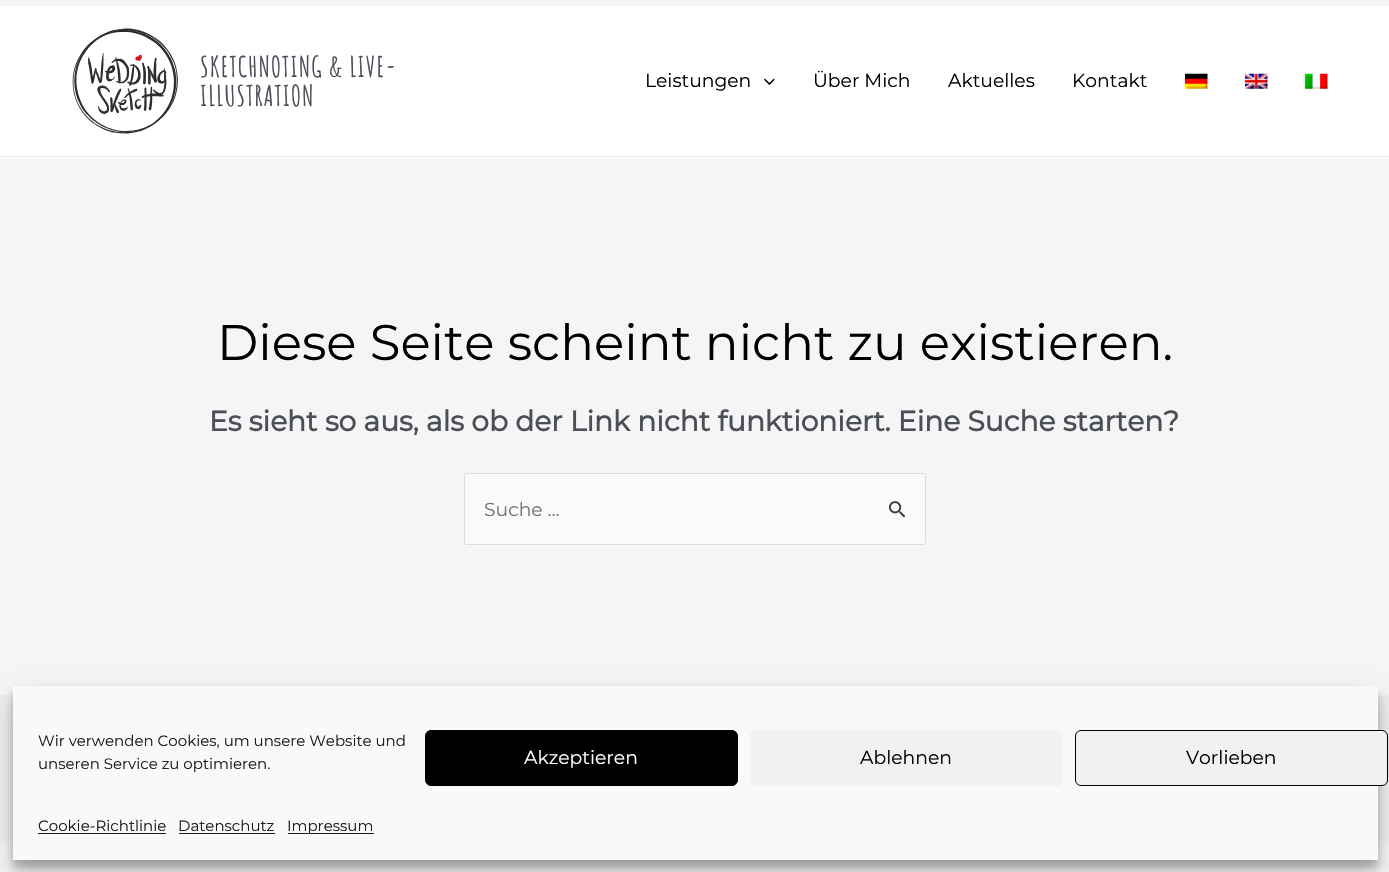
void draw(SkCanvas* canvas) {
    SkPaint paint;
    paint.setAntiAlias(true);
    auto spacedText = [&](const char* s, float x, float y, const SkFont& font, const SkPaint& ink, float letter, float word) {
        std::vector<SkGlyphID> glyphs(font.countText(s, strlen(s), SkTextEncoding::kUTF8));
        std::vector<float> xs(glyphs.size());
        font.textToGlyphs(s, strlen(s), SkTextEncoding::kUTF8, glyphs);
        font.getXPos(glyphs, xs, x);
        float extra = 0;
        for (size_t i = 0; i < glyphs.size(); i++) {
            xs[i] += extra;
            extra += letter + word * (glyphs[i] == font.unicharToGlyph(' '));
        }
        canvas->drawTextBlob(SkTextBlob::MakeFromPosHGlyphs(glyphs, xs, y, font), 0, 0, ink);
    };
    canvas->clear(0xFFF5F5F5);
    paint.setColor(0xFFFFFFFF);
    canvas->drawRect(SkRect::MakeXYWH(0, 6, 1389, 152), paint);
    paint.setColor(0xFFEAEAEA);
    canvas->drawRect(SkRect::MakeXYWH(0, 156, 1389, 1), paint);
    canvas->drawImageRect(SkImages::DeferredFromEncodedData(SkData::MakeFromFileName("img1.png")), SkRect::MakeXYWH(72, 28, 106, 106), SkSamplingOptions());
    SkFont font1(fontMgr->matchFamilyStyle("Amatic SC", SkFontStyle::Bold()), 28.1f);
    font1.setSubpixel(true);
    paint.setColor(0xFF4B4F58);
    spacedText("SKETCHNOTING & LIVE-", 200, 77, font1, paint, 1, 0);
    spacedText("ILLUSTRATION", 200, 106, font1, paint, 1, 0);
    SkFont font2(fontMgr->matchFamilyStyle("Montserrat", SkFontStyle(100, SkFontStyle::kNormal_Width, SkFontStyle::kUpright_Slant)), 18.75f);
    font2.setSubpixel(true);
    paint.setColor(0xFF000000);
    canvas->drawString("Leistungen", 645, 87, font2, paint);
    canvas->drawImageRect(SkImages::DeferredFromEncodedData(SkData::MakeFromFileName("img2.png")), SkRect::MakeXYWH(764, 78, 11, 7), SkSamplingOptions());
    canvas->drawString("Über Mich", 813, 87, font2, paint);
    canvas->drawString("Aktuelles", 948, 87, font2, paint);
    canvas->drawString("Kontakt", 1072, 87, font2, paint);
    canvas->drawImageRect(SkImages::DeferredFromEncodedData(SkData::MakeFromFileName("img3.png")), SkRect::MakeXYWH(1185, 73, 23, 16), SkSamplingOptions());
    canvas->drawImageRect(SkImages::DeferredFromEncodedData(SkData::MakeFromFileName("img4.png")), SkRect::MakeXYWH(1245, 73, 23, 16), SkSamplingOptions());
    canvas->drawImageRect(SkImages::DeferredFromEncodedData(SkData::MakeFromFileName("img5.png")), SkRect::MakeXYWH(1305, 73, 23, 16), SkSamplingOptions());
    SkFont font3(fontMgr->matchFamilyStyle("Montserrat", SkFontStyle(100, SkFontStyle::kNormal_Width, SkFontStyle::kUpright_Slant)), 50);
    font3.setSubpixel(true);
    canvas->drawString("Diese Seite scheint nicht zu existieren.", 217, 360, font3, paint);
    SkFont font4(fontMgr->matchFamilyStyle("Montserrat", SkFontStyle::Bold()), 28.1f);
    font4.setSubpixel(true);
    paint.setColor(0xFF4B4F58);
    canvas->drawString("Es sieht so aus, als ob der Link nicht funktioniert. Eine Suche starten?", 209, 431, font4, paint);
    paint.setColor(0xFFFAFAFA);
    canvas->drawRoundRect(SkRect::MakeXYWH(464.5f, 473.5f, 461, 71), 2, 2, paint);
    paint.setStyle(SkPaint::kStroke_Style);
    paint.setStrokeWidth(1);
    paint.setColor(0xFFDDDDDD);
    canvas->drawRoundRect(SkRect::MakeXYWH(464.5f, 473.5f, 461, 71), 2, 2, paint);
    paint.setStyle(SkPaint::kFill_Style);
    paint.setColor(0xFF757575);
    canvas->drawString("Suche …", 484, 516, font2, paint);
    canvas->drawImageRect(SkImages::DeferredFromEncodedData(SkData::MakeFromFileName("img6.png")), SkRect::MakeXYWH(889, 501, 16, 17), SkSamplingOptions());
    paint.setColor(0xFFEEEEEE);
    canvas->drawRect(SkRect::MakeXYWH(0, 695, 1389, 146), paint);
    paint.setColor(0x3B000000);
    paint.setMaskFilter(SkMaskFilter::MakeBlur(kNormal_SkBlurStyle, 4));
    canvas->drawRect(SkRect::MakeXYWH(13, 694, 1365, 174), paint);
    paint.setMaskFilter(nullptr);
    paint.setColor(0x30000000);
    paint.setMaskFilter(SkMaskFilter::MakeBlur(kNormal_SkBlurStyle, 12.5f));
    canvas->drawRect(SkRect::MakeXYWH(13, 699, 1365, 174), paint);
    paint.setMaskFilter(nullptr);
    paint.setColor(0xFFF9F9F9);
    canvas->drawRect(SkRect::MakeXYWH(13, 686, 1365, 174), paint);
    SkFont font5(fontMgr->matchFamilyStyle("Montserrat", SkFontStyle(100, SkFontStyle::kNormal_Width, SkFontStyle::kUpright_Slant)), 15);
    font5.setSubpixel(true);
    paint.setColor(0xFF191E23);
    canvas->drawString("Wir verwenden Cookies, um unsere Website und", 38, 746, font5, paint);
    canvas->drawString("unseren Service zu optimieren.", 38, 769, font5, paint);
    paint.setColor(0xFF000000);
    canvas->drawRoundRect(SkRect::MakeXYWH(425.5f, 730.5f, 312, 55), 5.5f, 5.5f, paint);
    paint.setStyle(SkPaint::kStroke_Style);
    canvas->drawRoundRect(SkRect::MakeXYWH(425.5f, 730.5f, 312, 55), 5.5f, 5.5f, paint);
    paint.setStyle(SkPaint::kFill_Style);
    paint.setColor(0xFFFFFFFF);
    canvas->drawString("Akzeptieren", 524, 764, font2, paint);
    paint.setColor(0xFFF1F1F1);
    canvas->drawRoundRect(SkRect::MakeXYWH(750, 730, 313, 56), 6, 6, paint);
    paint.setColor(0xFF000000);
    canvas->drawString("Ablehnen", 860, 764, font2, paint);
    paint.setColor(0xFFF1F1F1);
    canvas->drawRoundRect(SkRect::MakeXYWH(1075.5f, 730.5f, 312, 55), 5.5f, 5.5f, paint);
    paint.setStyle(SkPaint::kStroke_Style);
    paint.setColor(0xFF000000);
    canvas->drawRoundRect(SkRect::MakeXYWH(1075.5f, 730.5f, 312, 55), 5.5f, 5.5f, paint);
    paint.setStyle(SkPaint::kFill_Style);
    canvas->drawString("Vorlieben", 1186, 764, font2, paint);
    paint.setColor(0xFF191E23);
    canvas->drawString("Cookie-Richtlinie", 38, 831, font5, paint);
    canvas->drawRect(SkRect::MakeXYWH(38, 833, 128, 1), paint);
    canvas->drawString("Datenschutz", 178, 831, font5, paint);
    canvas->drawRect(SkRect::MakeXYWH(179, 833, 96, 1), paint);
    canvas->drawRect(SkRect::MakeXYWH(288, 833, 86, 1), paint);
    canvas->drawString("Impressum", 287, 831, font5, paint);
}
